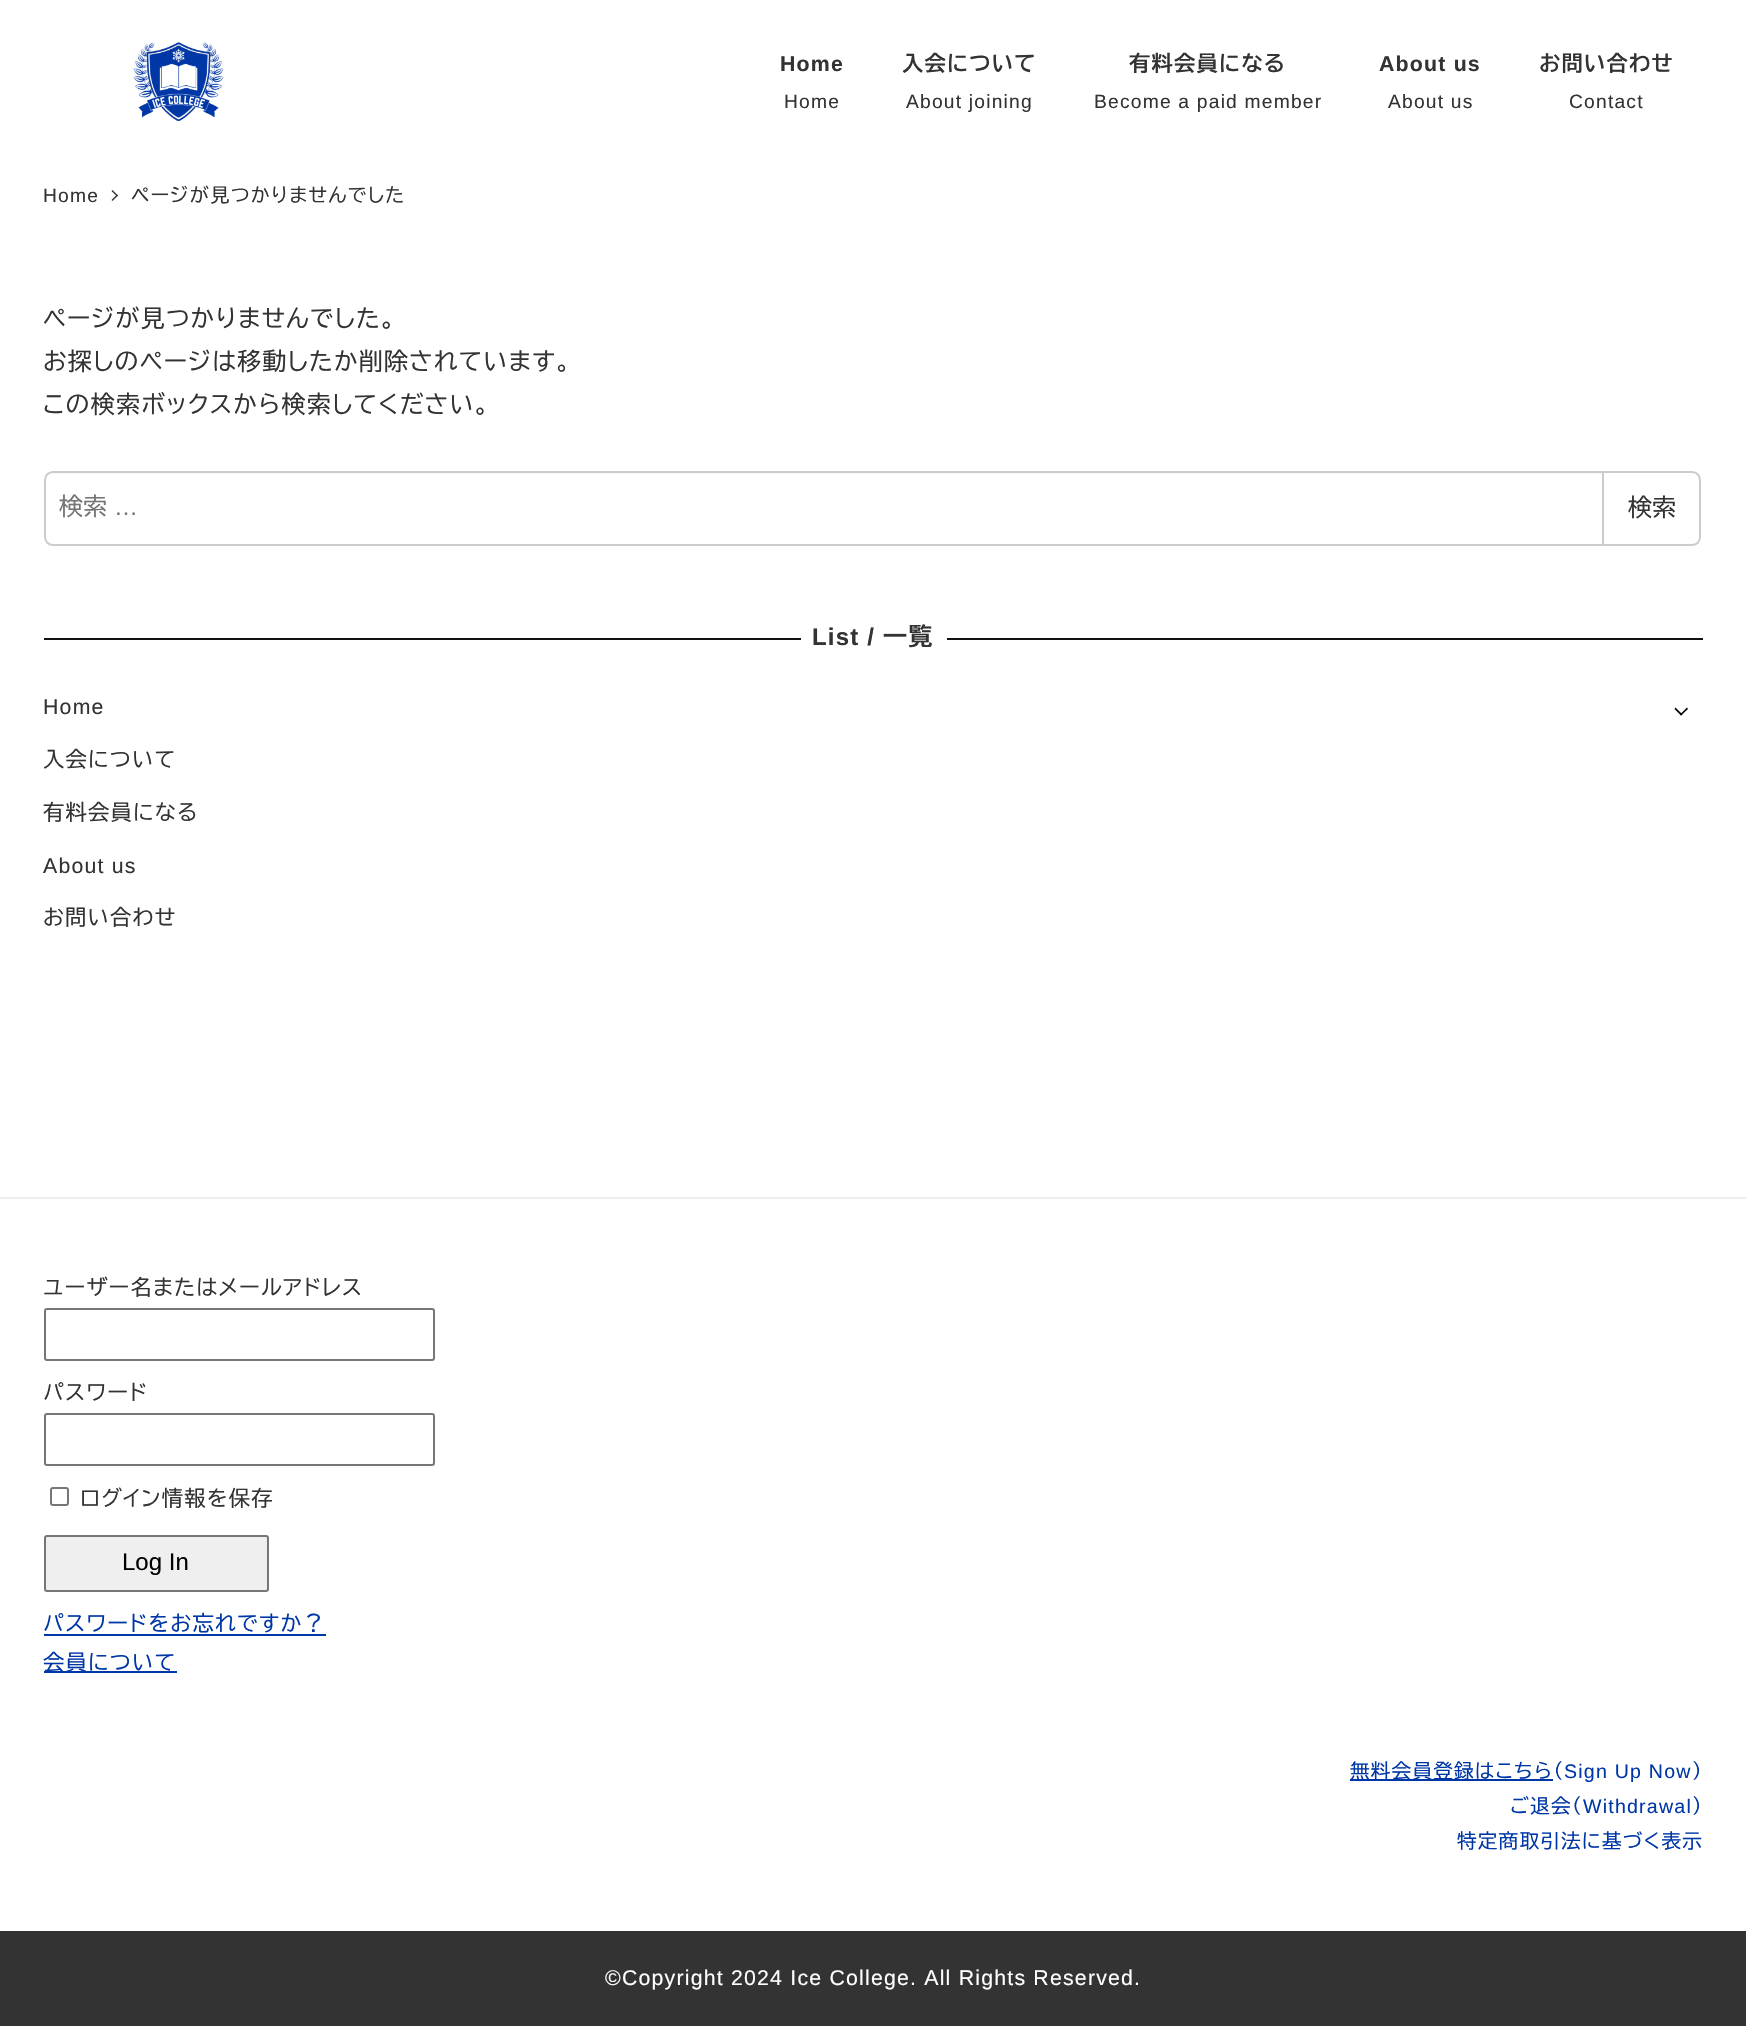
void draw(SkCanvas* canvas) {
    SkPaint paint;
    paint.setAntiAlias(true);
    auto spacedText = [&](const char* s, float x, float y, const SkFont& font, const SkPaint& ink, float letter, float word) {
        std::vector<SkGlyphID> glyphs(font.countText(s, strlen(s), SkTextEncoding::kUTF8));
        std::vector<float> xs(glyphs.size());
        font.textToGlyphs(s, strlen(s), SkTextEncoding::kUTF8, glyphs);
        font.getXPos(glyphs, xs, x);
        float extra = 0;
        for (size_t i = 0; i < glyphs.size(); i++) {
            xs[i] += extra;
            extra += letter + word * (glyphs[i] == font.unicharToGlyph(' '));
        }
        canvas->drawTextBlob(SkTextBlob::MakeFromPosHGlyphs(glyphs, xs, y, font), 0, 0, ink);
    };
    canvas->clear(0xFFFFFFFF);
    canvas->drawImageRect(SkImages::DeferredFromEncodedData(SkData::MakeFromFileName("img1.png")), SkRect::MakeXYWH(133, 42, 91, 80), SkSamplingOptions());
    SkFont font1(fontMgr->matchFamilyStyle("Liberation Sans", SkFontStyle::Bold()), 21.3f);
    font1.setSubpixel(true);
    paint.setColor(0xFF333333);
    spacedText("Home", 780, 71, font1, paint, 1.2f, 0);
    SkFont font2(fontMgr->matchFamilyStyle("Liberation Sans", SkFontStyle::Normal()), 19.25f);
    font2.setSubpixel(true);
    spacedText("Home", 784, 108, font2, paint, 1.2f, 0);
    SkFont font3(fontMgr->matchFamilyStyle("BIZ UDPGothic", SkFontStyle::Bold()), 21.3f);
    font3.setSubpixel(true);
    spacedText("入会について", 902, 71, font3, paint, 1.2f, 0);
    spacedText("About joining", 906, 108, font2, paint, 1.2f, 0);
    spacedText("有料会員になる", 1129, 71, font3, paint, 1.2f, 0);
    spacedText("Become a paid member", 1094, 108, font2, paint, 1.2f, 0);
    spacedText("About us", 1379, 71, font1, paint, 1.2f, 0);
    spacedText("About us", 1388, 108, font2, paint, 1.2f, 0);
    spacedText("お問い合わせ", 1539, 71, font3, paint, 1.2f, 0);
    spacedText("Contact", 1569, 108, font2, paint, 1.2f, 0);
    spacedText("Home", 43, 202, font2, paint, 1.2f, 0);
    canvas->drawPath(SkPathBuilder().moveTo(112.5f, 190).lineTo(118, 195.5f).lineTo(117, 196.5f).lineTo(111.5f, 191).close().detach(), paint);
    canvas->drawPath(SkPathBuilder().moveTo(117, 194.5f).lineTo(118, 195.5f).lineTo(112.5f, 201).lineTo(111.5f, 200).close().detach(), paint);
    SkFont font4(fontMgr->matchFamilyStyle("BIZ UDPGothic", SkFontStyle::Normal()), 19.25f);
    font4.setSubpixel(true);
    spacedText("ページが見つかりませんでした", 131, 202, font4, paint, 1.2f, 0);
    SkFont font5(fontMgr->matchFamilyStyle("BIZ UDPGothic", SkFontStyle::Normal()), 24);
    font5.setSubpixel(true);
    spacedText("ページが見つかりませんでした。", 43, 327, font5, paint, 1.2f, 0);
    spacedText("お探しのページは移動したか削除されています。", 43, 370, font5, paint, 1.2f, 0);
    spacedText("この検索ボックスから検索してください。", 43, 413, font5, paint, 1.2f, 0);
    paint.setStyle(SkPaint::kStroke_Style);
    paint.setStrokeWidth(2);
    paint.setColor(0xFFCCCCCC);
    canvas->drawPath(SkPathBuilder().moveTo(1603, 472).lineTo(1692, 472).cubicTo(1696.5f, 472, 1700, 475.5f, 1700, 480).lineTo(1700, 537).cubicTo(1700, 541.5f, 1696.5f, 545, 1692, 545).lineTo(1603, 545).close().detach(), paint);
    paint.setStyle(SkPaint::kFill_Style);
    paint.setColor(0xFFFFFFFF);
    canvas->drawPath(SkPathBuilder().moveTo(53, 471).lineTo(1604, 471).lineTo(1604, 546).lineTo(53, 546).cubicTo(48, 546, 44, 542, 44, 537).lineTo(44, 480).cubicTo(44, 475, 48, 471, 53, 471).close().detach(), paint);
    paint.setColor(0xFFF6F6F6);
    canvas->drawPath(SkPathBuilder().moveTo(52, 474).lineTo(1602, 474).lineTo(1602, 473).lineTo(53, 473).cubicTo(48, 473, 45, 477, 45, 482).cubicTo(45, 477, 48, 474, 52, 474).close().detach(), paint);
    paint.setStyle(SkPaint::kStroke_Style);
    paint.setColor(0xFFCCCCCC);
    canvas->drawPath(SkPathBuilder().moveTo(53, 472).lineTo(1603, 472).lineTo(1603, 545).lineTo(53, 545).cubicTo(48.5f, 545, 45, 541.5f, 45, 537).lineTo(45, 480).cubicTo(45, 475.5f, 48.5f, 472, 53, 472).close().detach(), paint);
    paint.setStyle(SkPaint::kFill_Style);
    paint.setColor(0xFF757575);
    canvas->drawString("検索", 59, 515, font5, paint);
    SkFont font6(fontMgr->matchFamilyStyle("Liberation Sans", SkFontStyle::Normal()), 24);
    font6.setSubpixel(true);
    canvas->drawString("…", 114, 515, font6, paint);
    paint.setColor(0xFF333333);
    canvas->drawString("検索", 1628, 516, font5, paint);
    paint.setColor(0xFF111111);
    canvas->drawRect(SkRect::MakeXYWH(44, 638, 757, 2), paint);
    SkFont font7(fontMgr->matchFamilyStyle("Liberation Sans", SkFontStyle::Bold()), 24);
    font7.setSubpixel(true);
    paint.setColor(0xFF333333);
    spacedText("List /", 812, 645, font7, paint, 1.2f, 0);
    SkFont font8(fontMgr->matchFamilyStyle("BIZ UDPGothic", SkFontStyle::Bold()), 24);
    font8.setSubpixel(true);
    spacedText("一覧", 883, 645, font8, paint, 1.2f, 0);
    paint.setColor(0xFF111111);
    canvas->drawRect(SkRect::MakeXYWH(947, 638, 756, 2), paint);
    SkFont font9(fontMgr->matchFamilyStyle("Liberation Sans", SkFontStyle::Normal()), 21.3f);
    font9.setSubpixel(true);
    paint.setColor(0xFF333333);
    spacedText("Home", 43, 714, font9, paint, 1.2f, 0);
    paint.setColor(0xFF000000);
    canvas->drawPath(SkPathBuilder().moveTo(1688, 709).lineTo(1681, 715.5f).lineTo(1680, 714.5f).lineTo(1687, 707.5f).close().detach(), paint);
    canvas->drawPath(SkPathBuilder().moveTo(1682.5f, 714.5f).lineTo(1681, 715.5f).lineTo(1674.5f, 709).lineTo(1675.5f, 707.5f).close().detach(), paint);
    SkFont font10(fontMgr->matchFamilyStyle("BIZ UDPGothic", SkFontStyle::Normal()), 21.3f);
    font10.setSubpixel(true);
    paint.setColor(0xFF333333);
    spacedText("入会について", 43, 767, font10, paint, 1.2f, 0);
    spacedText("有料会員になる", 43, 820, font10, paint, 1.2f, 0);
    spacedText("About us", 43, 873, font9, paint, 1.2f, 0);
    spacedText("お問い合わせ", 43, 925, font10, paint, 1.2f, 0);
    paint.setColor(0xFFEEEEEE);
    canvas->drawRect(SkRect::MakeXYWH(0, 1197, 1746, 2), paint);
    paint.setColor(0xFF333333);
    spacedText("ユーザー名またはメールアドレス", 43, 1295, font10, paint, 1.2f, 0);
    paint.setStyle(SkPaint::kStroke_Style);
    paint.setColor(0xFF767676);
    canvas->drawRoundRect(SkRect::MakeXYWH(45, 1309, 389, 51), 2, 2, paint);
    paint.setStyle(SkPaint::kFill_Style);
    paint.setColor(0xFF333333);
    spacedText("パスワード", 43, 1400, font10, paint, 1.2f, 0);
    paint.setStyle(SkPaint::kStroke_Style);
    paint.setColor(0xFF767676);
    canvas->drawRoundRect(SkRect::MakeXYWH(45, 1414, 389, 51), 2, 2, paint);
    canvas->drawRoundRect(SkRect::MakeXYWH(51, 1488, 17, 17), 2, 2, paint);
    paint.setStyle(SkPaint::kFill_Style);
    paint.setColor(0xFF333333);
    spacedText("ログイン情報を保存", 80, 1506, font10, paint, 1.2f, 0);
    paint.setColor(0xFFEFEFEF);
    canvas->drawRoundRect(SkRect::MakeXYWH(45, 1536, 223, 55), 2, 2, paint);
    paint.setStyle(SkPaint::kStroke_Style);
    paint.setColor(0xFF767676);
    canvas->drawRoundRect(SkRect::MakeXYWH(45, 1536, 223, 55), 2, 2, paint);
    paint.setStyle(SkPaint::kFill_Style);
    paint.setColor(0xFF000000);
    canvas->drawString("Log In", 122, 1570, font6, paint);
    paint.setColor(0xFF0037A6);
    spacedText("パスワードをお忘れですか？", 43, 1631, font10, paint, 1.2f, 0);
    canvas->drawRect(SkRect::MakeXYWH(44, 1634, 282, 2), paint);
    canvas->drawRect(SkRect::MakeXYWH(44, 1671, 133, 2), paint);
    spacedText("会員について", 43, 1670, font10, paint, 1.2f, 0);
    canvas->drawRect(SkRect::MakeXYWH(1350, 1779, 203, 2), paint);
    SkFont font11(fontMgr->matchFamilyStyle("BIZ UDPGothic", SkFontStyle::Normal()), 19.6f);
    font11.setSubpixel(true);
    spacedText("無料会員登録はこちら（", 1350, 1778, font11, paint, 1.2f, 0);
    SkFont font12(fontMgr->matchFamilyStyle("Liberation Sans", SkFontStyle::Normal()), 19.6f);
    font12.setSubpixel(true);
    spacedText("Sign Up Now", 1564, 1778, font12, paint, 1.2f, 0);
    spacedText("）", 1692, 1778, font11, paint, 1.2f, 0);
    spacedText("ご退会（", 1510, 1813, font11, paint, 1.2f, 0);
    spacedText("Withdrawal", 1583, 1813, font12, paint, 1.2f, 0);
    spacedText("）", 1692, 1813, font11, paint, 1.2f, 0);
    spacedText("特定商取引法に基づく表示", 1457, 1848, font11, paint, 1.2f, 0);
    paint.setColor(0xFF333333);
    canvas->drawRect(SkRect::MakeXYWH(0, 1931, 1746, 95), paint);
    paint.setColor(0xFFFFFFFF);
    spacedText("©Copyright 2024 Ice College. All Rights Reserved.", 605, 1985, font9, paint, 1.2f, 0);
}
